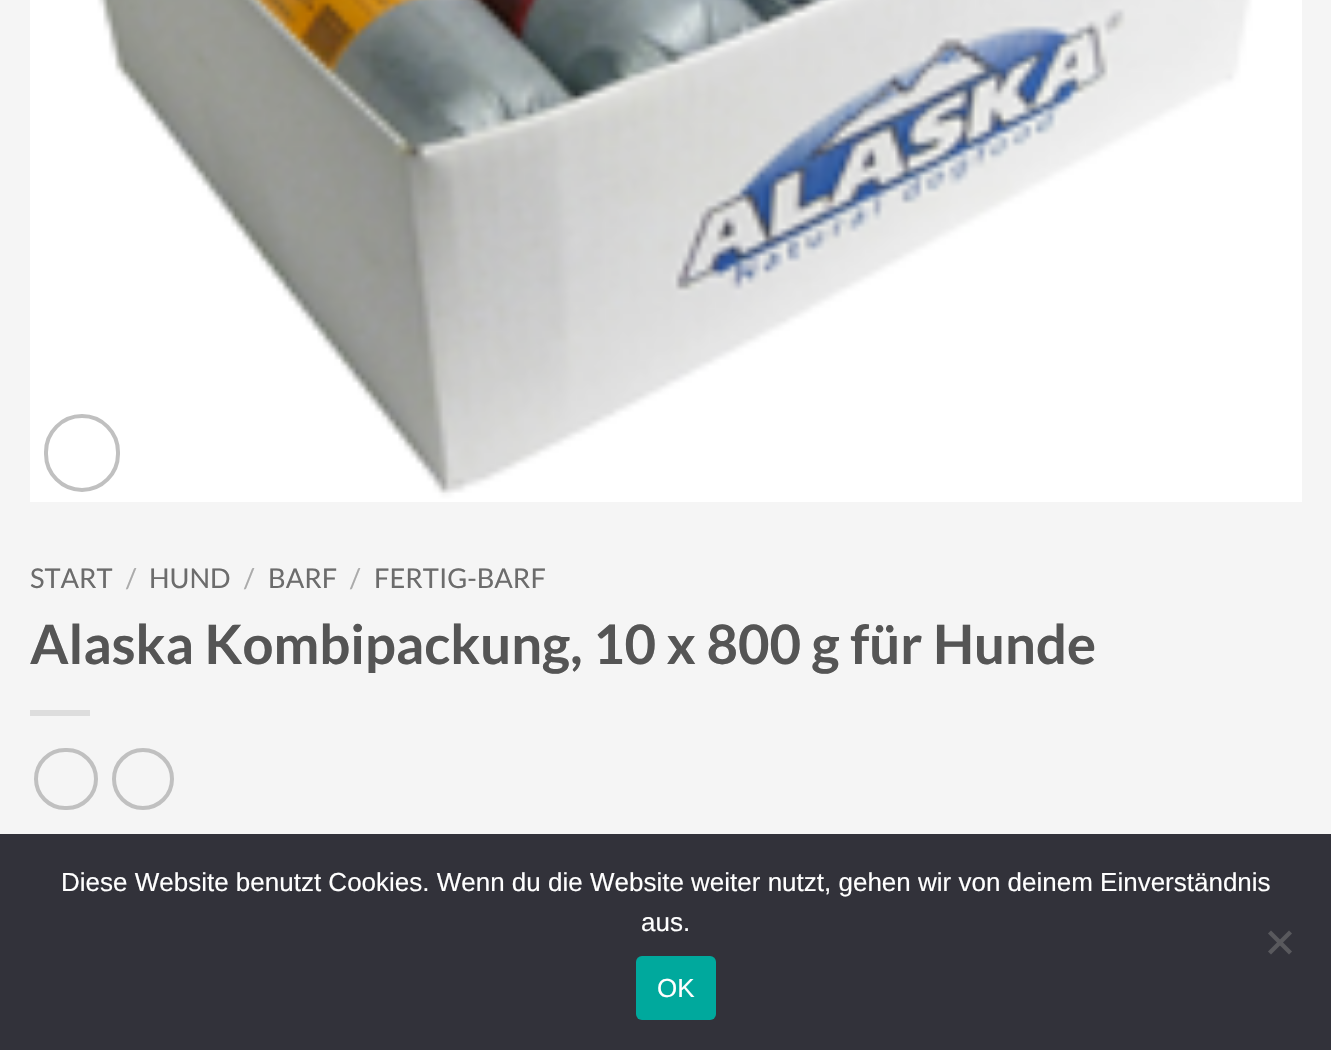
void draw(SkCanvas* canvas) {
    SkPaint paint;
    paint.setAntiAlias(true);
    canvas->clear(0xFFF5F5F5);
    canvas->drawImageRect(SkImages::DeferredFromEncodedData(SkData::MakeFromFileName("img1.png")), SkRect::MakeXYWH(30, 0, 1272, 502), SkSamplingOptions());
    paint.setStyle(SkPaint::kStroke_Style);
    paint.setStrokeWidth(4);
    paint.setColor(0xFFC0C0C0);
    canvas->drawRoundRect(SkRect::MakeXYWH(46, 416, 72, 74), 36, 36, paint);
    SkFont font1(fontMgr->matchFamilyStyle("Lato", SkFontStyle::Normal()), 27.25f);
    font1.setSubpixel(true);
    paint.setStyle(SkPaint::kFill_Style);
    paint.setColor(0xFF6C6C6C);
    canvas->drawString("START", 30, 588, font1, paint);
    paint.setColor(0xFFABABAB);
    canvas->drawString("/", 126, 588, font1, paint);
    paint.setColor(0xFF6C6C6C);
    canvas->drawString("HUND", 149, 588, font1, paint);
    paint.setColor(0xFFABABAB);
    canvas->drawString("/", 244, 588, font1, paint);
    paint.setColor(0xFF6C6C6C);
    canvas->drawString("BARF", 268, 588, font1, paint);
    paint.setColor(0xFFABABAB);
    canvas->drawString("/", 350, 588, font1, paint);
    paint.setColor(0xFF6C6C6C);
    canvas->drawString("FERTIG-BARF", 374, 588, font1, paint);
    SkFont font2(fontMgr->matchFamilyStyle("Lato", SkFontStyle::Bold()), 54.4f);
    font2.setSubpixel(true);
    paint.setColor(0xFF555555);
    canvas->drawString("Alaska Kombipackung, 10 x 800 g für Hunde", 30, 664, font2, paint);
    paint.setColor(0xFFDDDDDD);
    canvas->drawRect(SkRect::MakeXYWH(30, 710, 60, 6), paint);
    paint.setStyle(SkPaint::kStroke_Style);
    paint.setColor(0xFFC0C0C0);
    canvas->drawRoundRect(SkRect::MakeXYWH(36, 750, 60, 58), 29, 29, paint);
    canvas->drawCircle(143, 779, 29, paint);
    paint.setStyle(SkPaint::kFill_Style);
    paint.setColor(0xFF32323A);
    canvas->drawRect(SkRect::MakeXYWH(0, 834, 1331, 216), paint);
    SkFont font3(fontMgr->matchFamilyStyle("Liberation Sans", SkFontStyle::Normal()), 26);
    font3.setSubpixel(true);
    paint.setColor(0xFFFFFFFF);
    canvas->drawString("Diese Website benutzt Cookies. Wenn du die Website weiter nutzt, gehen wir von deinem Einverständnis", 61, 891, font3, paint);
    canvas->drawString("aus.", 641, 931, font3, paint);
    paint.setColor(0xFF59595D);
    canvas->drawPath(SkPathBuilder().moveTo(1289, 930.5f).lineTo(1292, 933.5f).lineTo(1271, 954.5f).lineTo(1268, 951.5f).close().detach(), paint);
    canvas->drawPath(SkPathBuilder().moveTo(1268, 933.5f).lineTo(1271, 930.5f).lineTo(1292, 951.5f).lineTo(1289, 954.5f).close().detach(), paint);
    paint.setColor(0xFF00A99D);
    canvas->drawRoundRect(SkRect::MakeXYWH(636, 956, 80, 64), 6, 6, paint);
    paint.setColor(0xFFFFFFFF);
    canvas->drawString("OK", 657, 997, font3, paint);
}
